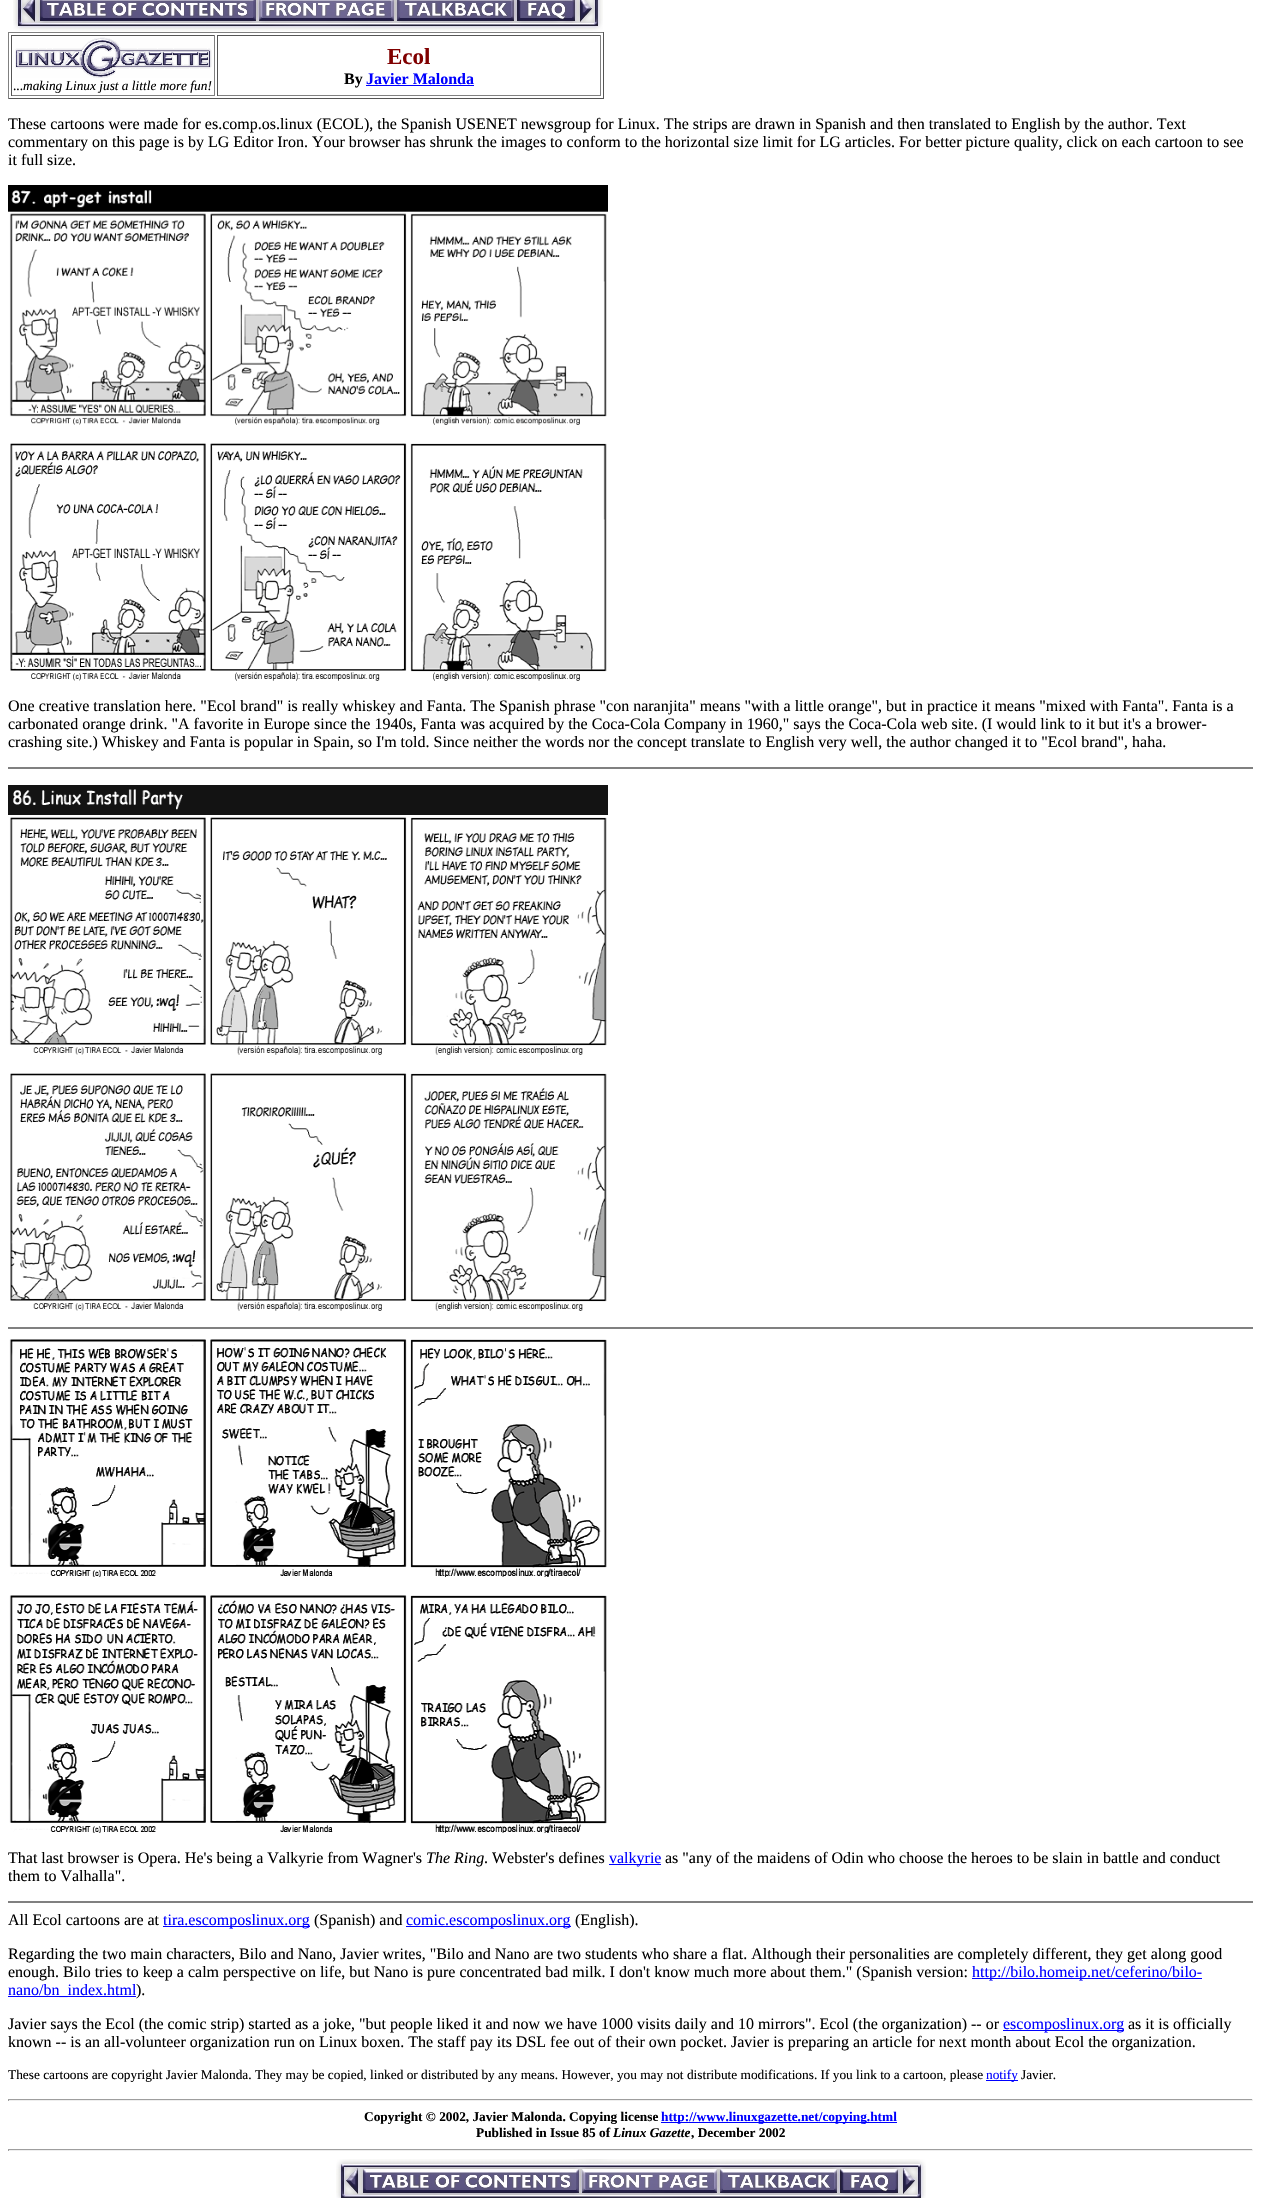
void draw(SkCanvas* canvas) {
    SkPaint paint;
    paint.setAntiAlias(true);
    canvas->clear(0xFFFFFFFF);
    canvas->drawImageRect(SkImages::DeferredFromEncodedData(SkData::MakeFromFileName("img1.png")), SkRect::MakeXYWH(13, 0, 9, 31), SkSamplingOptions());
    canvas->drawImageRect(SkImages::DeferredFromEncodedData(SkData::MakeFromFileName("img2.png")), SkRect::MakeXYWH(22, 0, 16, 31), SkSamplingOptions());
    canvas->drawImageRect(SkImages::DeferredFromEncodedData(SkData::MakeFromFileName("img3.png")), SkRect::MakeXYWH(38, 0, 220, 32), SkSamplingOptions());
    canvas->drawImageRect(SkImages::DeferredFromEncodedData(SkData::MakeFromFileName("img4.png")), SkRect::MakeXYWH(258, 0, 137, 31), SkSamplingOptions());
    canvas->drawImageRect(SkImages::DeferredFromEncodedData(SkData::MakeFromFileName("img5.png")), SkRect::MakeXYWH(395, 0, 121, 31), SkSamplingOptions());
    canvas->drawImageRect(SkImages::DeferredFromEncodedData(SkData::MakeFromFileName("img6.png")), SkRect::MakeXYWH(516, 0, 62, 31), SkSamplingOptions());
    canvas->drawImageRect(SkImages::DeferredFromEncodedData(SkData::MakeFromFileName("img7.png")), SkRect::MakeXYWH(578, 0, 15, 31), SkSamplingOptions());
    canvas->drawImageRect(SkImages::DeferredFromEncodedData(SkData::MakeFromFileName("img8.png")), SkRect::MakeXYWH(593, 0, 10, 31), SkSamplingOptions());
    paint.setColor(0xFF808080);
    canvas->drawRect(SkRect::MakeXYWH(8, 32, 596, 1), paint);
    paint.setColor(0xFF555555);
    canvas->drawRect(SkRect::MakeXYWH(603, 32, 1, 67), paint);
    canvas->drawRect(SkRect::MakeXYWH(8, 98, 596, 1), paint);
    paint.setColor(0xFF808080);
    canvas->drawRect(SkRect::MakeXYWH(8, 32, 1, 67), paint);
    paint.setColor(0xFF555555);
    canvas->drawRect(SkRect::MakeXYWH(11, 35, 204, 1), paint);
    paint.setColor(0xFF808080);
    canvas->drawRect(SkRect::MakeXYWH(214, 35, 1, 61), paint);
    canvas->drawRect(SkRect::MakeXYWH(11, 95, 204, 1), paint);
    paint.setColor(0xFF555555);
    canvas->drawRect(SkRect::MakeXYWH(11, 35, 1, 61), paint);
    canvas->drawImageRect(SkImages::DeferredFromEncodedData(SkData::MakeFromFileName("img9.png")), SkRect::MakeXYWH(15, 37, 197, 41), SkSamplingOptions());
    SkFont font1(fontMgr->matchFamilyStyle("Liberation Serif", SkFontStyle::Normal()), 13.33f);
    font1.setSubpixel(true);
    paint.setColor(0xFF000000);
    canvas->drawString("...", 13, 90, font1, paint);
    SkFont font2(fontMgr->matchFamilyStyle("Liberation Serif", SkFontStyle::Italic()), 13.33f);
    font2.setSubpixel(true);
    canvas->drawString("making Linux just a little more fun!", 23, 90, font2, paint);
    paint.setColor(0xFF555555);
    canvas->drawRect(SkRect::MakeXYWH(217, 35, 384, 1), paint);
    paint.setColor(0xFF808080);
    canvas->drawRect(SkRect::MakeXYWH(600, 35, 1, 61), paint);
    canvas->drawRect(SkRect::MakeXYWH(217, 95, 384, 1), paint);
    paint.setColor(0xFF555555);
    canvas->drawRect(SkRect::MakeXYWH(217, 35, 1, 61), paint);
    SkFont font3(fontMgr->matchFamilyStyle("Liberation Serif", SkFontStyle::Bold()), 23);
    font3.setSubpixel(true);
    paint.setColor(0xFF800000);
    canvas->drawString("Ecol", 387, 64, font3, paint);
    SkFont font4(fontMgr->matchFamilyStyle("Liberation Serif", SkFontStyle::Bold()), 16);
    font4.setSubpixel(true);
    paint.setColor(0xFF000000);
    canvas->drawString("By", 344, 84, font4, paint);
    paint.setColor(0xFF0000FF);
    canvas->drawRect(SkRect::MakeXYWH(366, 85, 108, 1), paint);
    canvas->drawString("Javier Malonda", 366, 84, font4, paint);
    SkFont font5(fontMgr->matchFamilyStyle("Liberation Serif", SkFontStyle::Normal()), 16);
    font5.setSubpixel(true);
    paint.setColor(0xFF000000);
    canvas->drawString("These cartoons were made for es.comp.os.linux (ECOL), the Spanish USENET newsgroup for Linux. The strips are drawn in Spanish and then translated to English by the author. Text", 8, 129, font5, paint);
    canvas->drawString("commentary on this page is by LG Editor Iron. Your browser has shrunk the images to conform to the horizontal size limit for LG articles. For better picture quality, click on each cartoon to see", 8, 147, font5, paint);
    canvas->drawString("it full size.", 8, 165, font5, paint);
    canvas->drawImageRect(SkImages::DeferredFromEncodedData(SkData::MakeFromFileName("img10.png")), SkRect::MakeXYWH(8, 185, 600, 240), SkSamplingOptions());
    canvas->drawImageRect(SkImages::DeferredFromEncodedData(SkData::MakeFromFileName("img11.png")), SkRect::MakeXYWH(10, 443, 597, 238), SkSamplingOptions());
    canvas->drawString("One creative translation here. \"Ecol brand\" is really whiskey and Fanta. The Spanish phrase \"con naranjita\" means \"with a little orange\", but in practice it means \"mixed with Fanta\". Fanta is a", 8, 711, font5, paint);
    canvas->drawString("carbonated orange drink. \"A favorite in Europe since the 1940s, Fanta was acquired by the Coca-Cola Company in 1960,\" says the Coca-Cola web site. (I would link to it but it's a brower-", 8, 729, font5, paint);
    canvas->drawString("crashing site.) Whiskey and Fanta is popular in Spain, so I'm told. Since neither the words nor the concept translate to English very well, the author changed it to \"Ecol brand\", haha.", 8, 747, font5, paint);
    paint.setColor(0xFF808080);
    canvas->drawRect(SkRect::MakeXYWH(8, 767, 1245, 2), paint);
    canvas->drawImageRect(SkImages::DeferredFromEncodedData(SkData::MakeFromFileName("img12.png")), SkRect::MakeXYWH(8, 785, 600, 270), SkSamplingOptions());
    canvas->drawImageRect(SkImages::DeferredFromEncodedData(SkData::MakeFromFileName("img13.png")), SkRect::MakeXYWH(10, 1073, 597, 238), SkSamplingOptions());
    canvas->drawRect(SkRect::MakeXYWH(8, 1327, 1245, 2), paint);
    canvas->drawImageRect(SkImages::DeferredFromEncodedData(SkData::MakeFromFileName("img14.png")), SkRect::MakeXYWH(9, 1339, 598, 238), SkSamplingOptions());
    canvas->drawImageRect(SkImages::DeferredFromEncodedData(SkData::MakeFromFileName("img15.png")), SkRect::MakeXYWH(9, 1595, 598, 238), SkSamplingOptions());
    paint.setColor(0xFF000000);
    canvas->drawString("That last browser is Opera. He's being a Valkyrie from Wagner's", 8, 1863, font5, paint);
    SkFont font6(fontMgr->matchFamilyStyle("Liberation Serif", SkFontStyle::Italic()), 16);
    font6.setSubpixel(true);
    canvas->drawString("The Ring", 426, 1863, font6, paint);
    canvas->drawString(". Webster's defines", 484, 1863, font5, paint);
    paint.setColor(0xFF0000FF);
    canvas->drawRect(SkRect::MakeXYWH(609, 1864, 52, 1), paint);
    canvas->drawString("valkyrie", 609, 1863, font5, paint);
    paint.setColor(0xFF000000);
    canvas->drawString("as \"any of the maidens of Odin who choose the heroes to be slain in battle and conduct", 665, 1863, font5, paint);
    canvas->drawString("them to Valhalla\".", 8, 1881, font5, paint);
    paint.setColor(0xFF808080);
    canvas->drawRect(SkRect::MakeXYWH(8, 1901, 1245, 2), paint);
    paint.setColor(0xFF000000);
    canvas->drawString("All Ecol cartoons are at", 8, 1925, font5, paint);
    paint.setColor(0xFF0000FF);
    canvas->drawRect(SkRect::MakeXYWH(163, 1926, 147, 1), paint);
    canvas->drawString("tira.escomposlinux.org", 163, 1925, font5, paint);
    paint.setColor(0xFF000000);
    canvas->drawString("(Spanish) and", 314, 1925, font5, paint);
    paint.setColor(0xFF0000FF);
    canvas->drawRect(SkRect::MakeXYWH(406, 1926, 165, 1), paint);
    canvas->drawString("comic.escomposlinux.org", 406, 1925, font5, paint);
    paint.setColor(0xFF000000);
    canvas->drawString("(English).", 575, 1925, font5, paint);
    canvas->drawString("Regarding the two main characters, Bilo and Nano, Javier writes, \"Bilo and Nano are two students who share a flat. Although their personalities are completely different, they get along good", 8, 1959, font5, paint);
    canvas->drawString("enough. Bilo tries to keep a calm perspective on life, but Nano is pure concentrated bad milk. I don't know much more about them.\" (Spanish version:", 8, 1977, font5, paint);
    paint.setColor(0xFF0000FF);
    canvas->drawRect(SkRect::MakeXYWH(972, 1978, 230, 1), paint);
    canvas->drawString("http://bilo.homeip.net/ceferino/bilo-", 972, 1977, font5, paint);
    canvas->drawRect(SkRect::MakeXYWH(8, 1996, 128, 1), paint);
    canvas->drawString("nano/bn_index.html", 8, 1995, font5, paint);
    paint.setColor(0xFF000000);
    canvas->drawString(").", 136, 1995, font5, paint);
    canvas->drawString("Javier says the Ecol (the comic strip) started as a joke, \"but people liked it and now we have 1000 visits daily and 10 mirrors\". Ecol (the organization) -- or", 8, 2029, font5, paint);
    paint.setColor(0xFF0000FF);
    canvas->drawRect(SkRect::MakeXYWH(1003, 2030, 121, 1), paint);
    canvas->drawString("escomposlinux.org", 1003, 2029, font5, paint);
    paint.setColor(0xFF000000);
    canvas->drawString("as it is officially", 1128, 2029, font5, paint);
    canvas->drawString("known -- is an all-volunteer organization run on Linux boxen. The staff pay its DSL fee out of their own pocket. Javier is preparing an article for next month about Ecol the organization.", 8, 2047, font5, paint);
    canvas->drawString("These cartoons are copyright Javier Malonda. They may be copied, linked or distributed by any means. However, you may not distribute modifications. If you link to a cartoon, please", 8, 2079, font1, paint);
    paint.setColor(0xFF0000FF);
    canvas->drawRect(SkRect::MakeXYWH(986, 2080, 32, 1), paint);
    canvas->drawString("notify", 986, 2079, font1, paint);
    paint.setColor(0xFF000000);
    canvas->drawString("Javier.", 1021, 2079, font1, paint);
    paint.setColor(0xFF9F9F9F);
    canvas->drawRect(SkRect::MakeXYWH(8, 2099, 1245, 1), paint);
    paint.setColor(0xFFEEEEEE);
    canvas->drawRect(SkRect::MakeXYWH(1252, 2099, 1, 2), paint);
    canvas->drawRect(SkRect::MakeXYWH(8, 2100, 1245, 1), paint);
    paint.setColor(0xFF9F9F9F);
    canvas->drawRect(SkRect::MakeXYWH(8, 2099, 1, 2), paint);
    SkFont font7(fontMgr->matchFamilyStyle("Liberation Serif", SkFontStyle::Bold()), 13.33f);
    font7.setSubpixel(true);
    paint.setColor(0xFF000000);
    canvas->drawString("Copyright © 2002, Javier Malonda. Copying license", 364, 2121, font7, paint);
    paint.setColor(0xFF0000FF);
    canvas->drawRect(SkRect::MakeXYWH(661, 2122, 236, 1), paint);
    canvas->drawString("http://www.linuxgazette.net/copying.html", 661, 2121, font7, paint);
    paint.setColor(0xFF000000);
    canvas->drawString("Published in Issue 85 of", 476, 2137, font7, paint);
    SkFont font8(fontMgr->matchFamilyStyle("Liberation Serif", SkFontStyle::BoldItalic()), 13.33f);
    font8.setSubpixel(true);
    canvas->drawString("Linux Gazette", 613, 2137, font8, paint);
    canvas->drawString(", December 2002", 691, 2137, font7, paint);
    paint.setColor(0xFF9F9F9F);
    canvas->drawRect(SkRect::MakeXYWH(8, 2149, 1245, 1), paint);
    paint.setColor(0xFFEEEEEE);
    canvas->drawRect(SkRect::MakeXYWH(1252, 2149, 1, 2), paint);
    canvas->drawRect(SkRect::MakeXYWH(8, 2150, 1245, 1), paint);
    paint.setColor(0xFF9F9F9F);
    canvas->drawRect(SkRect::MakeXYWH(8, 2149, 1, 2), paint);
    canvas->drawImageRect(SkImages::DeferredFromEncodedData(SkData::MakeFromFileName("img16.png")), SkRect::MakeXYWH(336, 2159, 9, 39), SkSamplingOptions());
    canvas->drawImageRect(SkImages::DeferredFromEncodedData(SkData::MakeFromFileName("img17.png")), SkRect::MakeXYWH(345, 2159, 16, 39), SkSamplingOptions());
    canvas->drawImageRect(SkImages::DeferredFromEncodedData(SkData::MakeFromFileName("img18.png")), SkRect::MakeXYWH(361, 2159, 220, 39), SkSamplingOptions());
    canvas->drawImageRect(SkImages::DeferredFromEncodedData(SkData::MakeFromFileName("img19.png")), SkRect::MakeXYWH(581, 2159, 137, 39), SkSamplingOptions());
    canvas->drawImageRect(SkImages::DeferredFromEncodedData(SkData::MakeFromFileName("img20.png")), SkRect::MakeXYWH(718, 2159, 121, 39), SkSamplingOptions());
    canvas->drawImageRect(SkImages::DeferredFromEncodedData(SkData::MakeFromFileName("img21.png")), SkRect::MakeXYWH(839, 2159, 62, 39), SkSamplingOptions());
    canvas->drawImageRect(SkImages::DeferredFromEncodedData(SkData::MakeFromFileName("img22.png")), SkRect::MakeXYWH(901, 2159, 15, 39), SkSamplingOptions());
    canvas->drawImageRect(SkImages::DeferredFromEncodedData(SkData::MakeFromFileName("img23.png")), SkRect::MakeXYWH(916, 2159, 10, 39), SkSamplingOptions());
}
